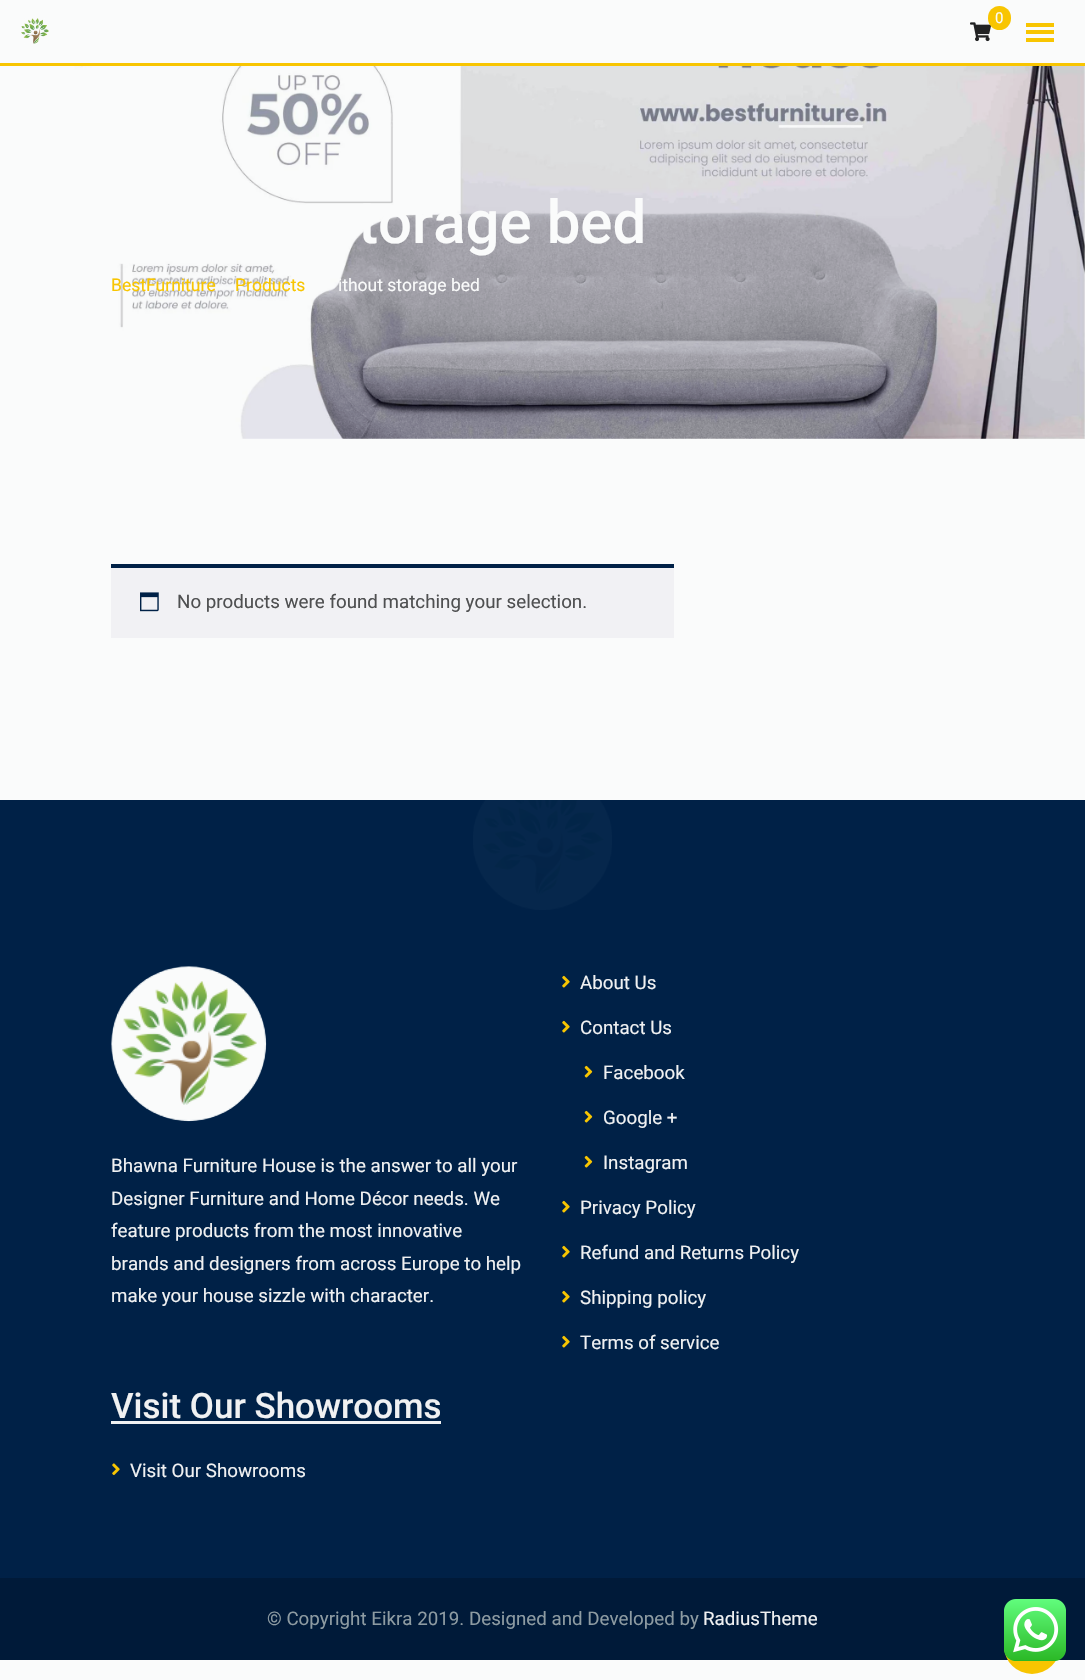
void draw(SkCanvas* canvas) {
    SkPaint paint;
    paint.setAntiAlias(true);
    canvas->clear(0xFFFAFBFB);
    paint.setColor(0xFFF8C501);
    canvas->drawRect(SkRect::MakeXYWH(0, 63, 1085, 3), paint);
    canvas->drawImageRect(SkImages::DeferredFromEncodedData(SkData::MakeFromFileName("img1.png")), SkRect::MakeXYWH(21, 18, 28, 26), SkSamplingOptions());
    canvas->drawImageRect(SkImages::DeferredFromEncodedData(SkData::MakeFromFileName("img2.png")), SkRect::MakeXYWH(970, 22, 21, 20), SkSamplingOptions());
    canvas->drawRoundRect(SkRect::MakeXYWH(988, 6, 23, 24), 11.5f, 11.5f, paint);
    SkFont font1(fontMgr->matchFamilyStyle("Roboto", SkFontStyle::Normal()), 15);
    font1.setSubpixel(true);
    paint.setColor(0xFFFAFBFB);
    canvas->drawString("0", 995, 23, font1, paint);
    paint.setColor(0xFFF8C501);
    canvas->drawRect(SkRect::MakeXYWH(1026, 23, 28, 4), paint);
    canvas->drawRect(SkRect::MakeXYWH(1026, 30, 28, 4), paint);
    canvas->drawRect(SkRect::MakeXYWH(1026, 38, 28, 4), paint);
    canvas->drawImageRect(SkImages::DeferredFromEncodedData(SkData::MakeFromFileName("img3.png")), SkRect::MakeXYWH(74, 66, 1011, 373), SkSamplingOptions());
    SkFont font2(fontMgr->matchFamilyStyle("Roboto", SkFontStyle(500, SkFontStyle::kNormal_Width, SkFontStyle::kUpright_Slant)), 60);
    font2.setSubpixel(true);
    paint.setColor(0xFFFAFBFB);
    canvas->drawString("torage bed", 358, 243, font2, paint);
    SkFont font3(fontMgr->matchFamilyStyle("Roboto", SkFontStyle::Normal()), 17.5f);
    font3.setSubpixel(true);
    paint.setColor(0xFFF8C501);
    canvas->drawString("BestFurniture", 111, 291, font3, paint);
    canvas->drawString("Products", 235, 291, font3, paint);
    paint.setColor(0xFFFAFBFB);
    canvas->drawString("ithout storage bed", 338, 291, font3, paint);
    paint.setColor(0xFFF1F1F4);
    canvas->drawRect(SkRect::MakeXYWH(111, 568, 563, 70), paint);
    paint.setColor(0xFF002147);
    canvas->drawRect(SkRect::MakeXYWH(111, 564, 563, 4), paint);
    canvas->drawImageRect(SkImages::DeferredFromEncodedData(SkData::MakeFromFileName("img4.png")), SkRect::MakeXYWH(140, 592, 19, 20), SkSamplingOptions());
    SkFont font4(fontMgr->matchFamilyStyle("Roboto", SkFontStyle::Normal()), 18.75f);
    font4.setSubpixel(true);
    paint.setColor(0xFF4F5051);
    canvas->drawString("No products were found matching your selection.", 177, 608, font4, paint);
    paint.setColor(0xFF002147);
    canvas->drawRect(SkRect::MakeXYWH(0, 800, 1085, 778), paint);
    canvas->drawImageRect(SkImages::DeferredFromEncodedData(SkData::MakeFromFileName("img5.png")), SkRect::MakeXYWH(111, 966, 156, 156), SkSamplingOptions());
    paint.setColor(0xFFF0F1F2);
    canvas->drawString("Bhawna Furniture House is the answer to all your", 111, 1172, font4, paint);
    canvas->drawString("Designer Furniture and Home Décor needs. We", 111, 1205, font4, paint);
    canvas->drawString("feature products from the most innovative", 111, 1237, font4, paint);
    canvas->drawString("brands and designers from across Europe to help", 111, 1270, font4, paint);
    canvas->drawString("make your house sizzle with character.", 111, 1302, font4, paint);
    canvas->drawImageRect(SkImages::DeferredFromEncodedData(SkData::MakeFromFileName("img6.png")), SkRect::MakeXYWH(562, 975, 8, 13), SkSamplingOptions());
    canvas->drawString("About Us", 580, 989, font4, paint);
    canvas->drawImageRect(SkImages::DeferredFromEncodedData(SkData::MakeFromFileName("img6.png")), SkRect::MakeXYWH(562, 1020, 8, 13), SkSamplingOptions());
    canvas->drawString("Contact Us", 580, 1034, font4, paint);
    canvas->drawImageRect(SkImages::DeferredFromEncodedData(SkData::MakeFromFileName("img7.png")), SkRect::MakeXYWH(584, 1065, 9, 13), SkSamplingOptions());
    canvas->drawString("Facebook", 603, 1079, font4, paint);
    canvas->drawImageRect(SkImages::DeferredFromEncodedData(SkData::MakeFromFileName("img7.png")), SkRect::MakeXYWH(584, 1110, 9, 13), SkSamplingOptions());
    canvas->drawString("Google +", 603, 1124, font4, paint);
    canvas->drawImageRect(SkImages::DeferredFromEncodedData(SkData::MakeFromFileName("img7.png")), SkRect::MakeXYWH(584, 1155, 9, 13), SkSamplingOptions());
    canvas->drawString("Instagram", 603, 1169, font4, paint);
    canvas->drawImageRect(SkImages::DeferredFromEncodedData(SkData::MakeFromFileName("img6.png")), SkRect::MakeXYWH(562, 1200, 8, 13), SkSamplingOptions());
    canvas->drawString("Privacy Policy", 580, 1214, font4, paint);
    canvas->drawImageRect(SkImages::DeferredFromEncodedData(SkData::MakeFromFileName("img6.png")), SkRect::MakeXYWH(562, 1245, 8, 13), SkSamplingOptions());
    canvas->drawString("Refund and Returns Policy", 580, 1259, font4, paint);
    canvas->drawImageRect(SkImages::DeferredFromEncodedData(SkData::MakeFromFileName("img6.png")), SkRect::MakeXYWH(562, 1290, 8, 13), SkSamplingOptions());
    canvas->drawString("Shipping policy", 580, 1304, font4, paint);
    canvas->drawImageRect(SkImages::DeferredFromEncodedData(SkData::MakeFromFileName("img6.png")), SkRect::MakeXYWH(562, 1335, 8, 13), SkSamplingOptions());
    canvas->drawString("Terms of service", 580, 1349, font4, paint);
    SkFont font5(fontMgr->matchFamilyStyle("Roboto", SkFontStyle(500, SkFontStyle::kNormal_Width, SkFontStyle::kUpright_Slant)), 35);
    font5.setSubpixel(true);
    canvas->drawString("Visit Our Showrooms", 111, 1418, font5, paint);
    canvas->drawRect(SkRect::MakeXYWH(111, 1421, 330, 3), paint);
    canvas->drawImageRect(SkImages::DeferredFromEncodedData(SkData::MakeFromFileName("img8.png")), SkRect::MakeXYWH(112, 1463, 8, 12), SkSamplingOptions());
    canvas->drawString("Visit Our Showrooms", 130, 1477, font4, paint);
    paint.setColor(0xFF001A39);
    canvas->drawRect(SkRect::MakeXYWH(0, 1578, 1085, 82), paint);
    paint.setColor(0xFF8D9BA2);
    canvas->drawString("© Copyright Eikra 2019. Designed and Developed by", 267, 1625, font4, paint);
    paint.setColor(0xFFF0F1F2);
    canvas->drawString("RadiusTheme", 703, 1625, font4, paint);
    canvas->drawImageRect(SkImages::DeferredFromEncodedData(SkData::MakeFromFileName("img9.png")), SkRect::MakeXYWH(473, 800, 139, 110), SkSamplingOptions());
    paint.setColor(0xFFF8C501);
    canvas->drawCircle(1032, 1646, 28, paint);
    canvas->drawImageRect(SkImages::DeferredFromEncodedData(SkData::MakeFromFileName("img10.png")), SkRect::MakeXYWH(1004, 1599, 62, 62), SkSamplingOptions());
}
